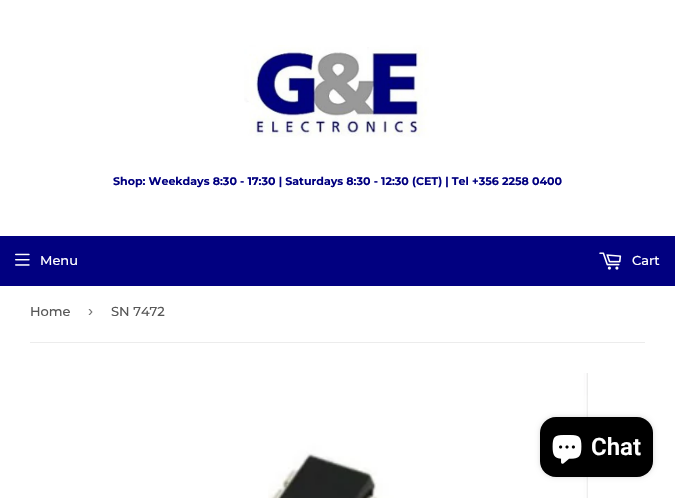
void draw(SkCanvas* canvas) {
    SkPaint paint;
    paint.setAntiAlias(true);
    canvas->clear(0xFFFFFFFF);
    canvas->drawImageRect(SkImages::DeferredFromEncodedData(SkData::MakeFromFileName("img1.png")), SkRect::MakeXYWH(244, 45, 185, 93), SkSamplingOptions());
    SkFont font1(fontMgr->matchFamilyStyle("Montserrat", SkFontStyle::Bold()), 11.05f);
    font1.setSubpixel(true);
    paint.setColor(0xFF010080);
    canvas->drawString("Shop: Weekdays 8:30 - 17:30 | Saturdays 8:30 - 12:30 (CET) | Tel +356 2258 0400", 113, 185, font1, paint);
    canvas->drawRect(SkRect::MakeXYWH(0, 236, 675, 50), paint);
    canvas->drawImageRect(SkImages::DeferredFromEncodedData(SkData::MakeFromFileName("img2.png")), SkRect::MakeXYWH(15, 253, 15, 13), SkSamplingOptions());
    SkFont font2(fontMgr->matchFamilyStyle("Montserrat", SkFontStyle(500, SkFontStyle::kNormal_Width, SkFontStyle::kUpright_Slant)), 13);
    font2.setSubpixel(true);
    paint.setColor(0xFFFFFFFF);
    canvas->drawString("Menu", 40, 265, font2, paint);
    canvas->drawImageRect(SkImages::DeferredFromEncodedData(SkData::MakeFromFileName("img3.png")), SkRect::MakeXYWH(599, 252, 23, 18), SkSamplingOptions());
    canvas->drawString("Cart", 632, 265, font2, paint);
    paint.setColor(0xFFECECEC);
    canvas->drawRect(SkRect::MakeXYWH(30, 342, 615, 1), paint);
    paint.setColor(0xFF585858);
    canvas->drawString("Home", 30, 316, font2, paint);
    SkFont font3(fontMgr->matchFamilyStyle("Liberation Sans", SkFontStyle::Normal()), 15);
    font3.setSubpixel(true);
    paint.setColor(0xFF767676);
    canvas->drawString("›", 88, 316, font3, paint);
    paint.setColor(0xFF585858);
    canvas->drawString("SN 7472", 111, 316, font2, paint);
    canvas->drawImageRect(SkImages::DeferredFromEncodedData(SkData::MakeFromFileName("img4.png")), SkRect::MakeXYWH(268, 373, 320, 125), SkSamplingOptions());
    paint.setColor(0x26000000);
    paint.setMaskFilter(SkMaskFilter::MakeBlur(kNormal_SkBlurStyle, 2.5f));
    canvas->drawRoundRect(SkRect::MakeXYWH(540, 417, 113, 60), 16, 16, paint);
    paint.setMaskFilter(nullptr);
    paint.setColor(0xFF000000);
    canvas->drawRoundRect(SkRect::MakeXYWH(540, 417, 113, 60), 16, 16, paint);
    canvas->drawImageRect(SkImages::DeferredFromEncodedData(SkData::MakeFromFileName("img5.png")), SkRect::MakeXYWH(552, 435, 30, 29), SkSamplingOptions());
    SkFont font4(fontMgr->matchFamilyStyle("Roboto", SkFontStyle(600, SkFontStyle::kNormal_Width, SkFontStyle::kUpright_Slant)), 24);
    font4.setSubpixel(true);
    paint.setColor(0xFFFFFFFF);
    canvas->drawString("Chat", 591, 455, font4, paint);
}
